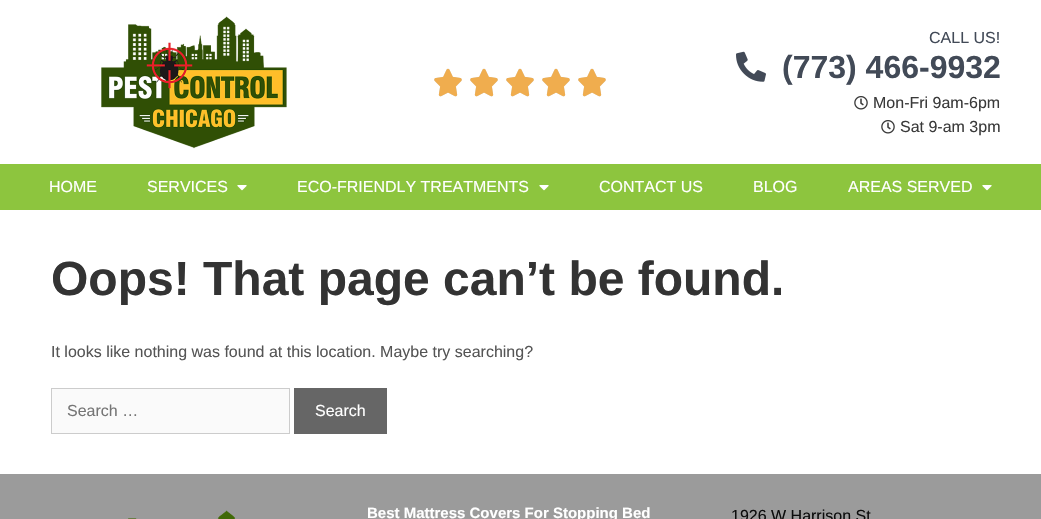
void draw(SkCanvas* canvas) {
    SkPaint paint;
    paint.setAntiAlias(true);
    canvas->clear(0xFFFFFFFF);
    canvas->drawImageRect(SkImages::DeferredFromEncodedData(SkData::MakeFromFileName("img1.png")), SkRect::MakeXYWH(101, 16, 186, 133), SkSamplingOptions());
    canvas->drawImageRect(SkImages::DeferredFromEncodedData(SkData::MakeFromFileName("img2.png")), SkRect::MakeXYWH(434, 68, 28, 29), SkSamplingOptions());
    canvas->drawImageRect(SkImages::DeferredFromEncodedData(SkData::MakeFromFileName("img3.png")), SkRect::MakeXYWH(434, 68, 28, 29), SkSamplingOptions());
    canvas->drawImageRect(SkImages::DeferredFromEncodedData(SkData::MakeFromFileName("img2.png")), SkRect::MakeXYWH(470, 68, 28, 29), SkSamplingOptions());
    canvas->drawImageRect(SkImages::DeferredFromEncodedData(SkData::MakeFromFileName("img3.png")), SkRect::MakeXYWH(470, 68, 28, 29), SkSamplingOptions());
    canvas->drawImageRect(SkImages::DeferredFromEncodedData(SkData::MakeFromFileName("img2.png")), SkRect::MakeXYWH(506, 68, 28, 29), SkSamplingOptions());
    canvas->drawImageRect(SkImages::DeferredFromEncodedData(SkData::MakeFromFileName("img3.png")), SkRect::MakeXYWH(506, 68, 28, 29), SkSamplingOptions());
    canvas->drawImageRect(SkImages::DeferredFromEncodedData(SkData::MakeFromFileName("img2.png")), SkRect::MakeXYWH(542, 68, 28, 29), SkSamplingOptions());
    canvas->drawImageRect(SkImages::DeferredFromEncodedData(SkData::MakeFromFileName("img3.png")), SkRect::MakeXYWH(542, 68, 28, 29), SkSamplingOptions());
    canvas->drawImageRect(SkImages::DeferredFromEncodedData(SkData::MakeFromFileName("img2.png")), SkRect::MakeXYWH(578, 68, 28, 29), SkSamplingOptions());
    canvas->drawImageRect(SkImages::DeferredFromEncodedData(SkData::MakeFromFileName("img3.png")), SkRect::MakeXYWH(578, 68, 28, 29), SkSamplingOptions());
    SkFont font1(fontMgr->matchFamilyStyle("Liberation Sans", SkFontStyle::Normal()), 16);
    font1.setSubpixel(true);
    paint.setColor(0xFF424A57);
    canvas->drawString("CALL US!", 929, 43, font1, paint);
    canvas->drawImageRect(SkImages::DeferredFromEncodedData(SkData::MakeFromFileName("img4.png")), SkRect::MakeXYWH(736, 51, 30, 31), SkSamplingOptions());
    SkFont font2(fontMgr->matchFamilyStyle("Liberation Sans", SkFontStyle::Bold()), 32);
    font2.setSubpixel(true);
    canvas->drawString("(773) 466-9932", 782, 78, font2, paint);
    canvas->drawImageRect(SkImages::DeferredFromEncodedData(SkData::MakeFromFileName("img5.png")), SkRect::MakeXYWH(854, 96, 14, 14), SkSamplingOptions());
    paint.setColor(0xFF3A3A3A);
    canvas->drawString("Mon-Fri 9am-6pm", 873, 108, font1, paint);
    canvas->drawImageRect(SkImages::DeferredFromEncodedData(SkData::MakeFromFileName("img5.png")), SkRect::MakeXYWH(881, 120, 14, 14), SkSamplingOptions());
    canvas->drawString("Sat 9-am 3pm", 900, 132, font1, paint);
    paint.setColor(0xFF8DC53E);
    canvas->drawRect(SkRect::MakeXYWH(0, 164, 1041, 46), paint);
    paint.setColor(0xFFFFFFFF);
    canvas->drawString("HOME", 49, 192, font1, paint);
    canvas->drawString("SERVICES", 147, 192, font1, paint);
    canvas->drawImageRect(SkImages::DeferredFromEncodedData(SkData::MakeFromFileName("img6.png")), SkRect::MakeXYWH(237, 185, 10, 6), SkSamplingOptions());
    canvas->drawString("ECO-FRIENDLY TREATMENTS", 297, 192, font1, paint);
    canvas->drawImageRect(SkImages::DeferredFromEncodedData(SkData::MakeFromFileName("img6.png")), SkRect::MakeXYWH(539, 185, 10, 6), SkSamplingOptions());
    canvas->drawString("CONTACT US", 599, 192, font1, paint);
    canvas->drawString("BLOG", 753, 192, font1, paint);
    canvas->drawString("AREAS SERVED", 848, 192, font1, paint);
    canvas->drawImageRect(SkImages::DeferredFromEncodedData(SkData::MakeFromFileName("img6.png")), SkRect::MakeXYWH(982, 185, 10, 6), SkSamplingOptions());
    SkFont font3(fontMgr->matchFamilyStyle("Liberation Sans", SkFontStyle::Bold()), 48);
    font3.setSubpixel(true);
    paint.setColor(0xFF333333);
    canvas->drawString("Oops! That page can’t be found.", 51, 295, font3, paint);
    paint.setColor(0xFF555555);
    canvas->drawString("It looks like nothing was found at this location. Maybe try searching?", 51, 357, font1, paint);
    paint.setColor(0xFFFAFAFA);
    canvas->drawRect(SkRect::MakeXYWH(51.5f, 388.5f, 238, 45), paint);
    paint.setStyle(SkPaint::kStroke_Style);
    paint.setStrokeWidth(1);
    paint.setColor(0xFFCCCCCC);
    canvas->drawRect(SkRect::MakeXYWH(51.5f, 388.5f, 238, 45), paint);
    paint.setStyle(SkPaint::kFill_Style);
    paint.setColor(0xFF757575);
    canvas->drawString("Search …", 67, 416, font1, paint);
    paint.setColor(0xFF666666);
    canvas->drawRect(SkRect::MakeXYWH(294, 388, 93, 46), paint);
    paint.setColor(0xFFFFFFFF);
    canvas->drawString("Search", 315, 416, font1, paint);
    paint.setColor(0xFF9B9B9B);
    canvas->drawRect(SkRect::MakeXYWH(0, 474, 1041, 45), paint);
    canvas->drawImageRect(SkImages::DeferredFromEncodedData(SkData::MakeFromFileName("img7.png")), SkRect::MakeXYWH(128, 510, 108, 9), SkSamplingOptions());
    SkFont font4(fontMgr->matchFamilyStyle("Liberation Sans", SkFontStyle::Bold()), 15);
    font4.setSubpixel(true);
    paint.setColor(0xFFFFFFFF);
    canvas->drawString("Best Mattress Covers For Stopping Bed", 367, 518, font4, paint);
    paint.setColor(0xFF0C0C0C);
    canvas->drawString("1926 W Harrison St", 731, 521, font1, paint);
}
